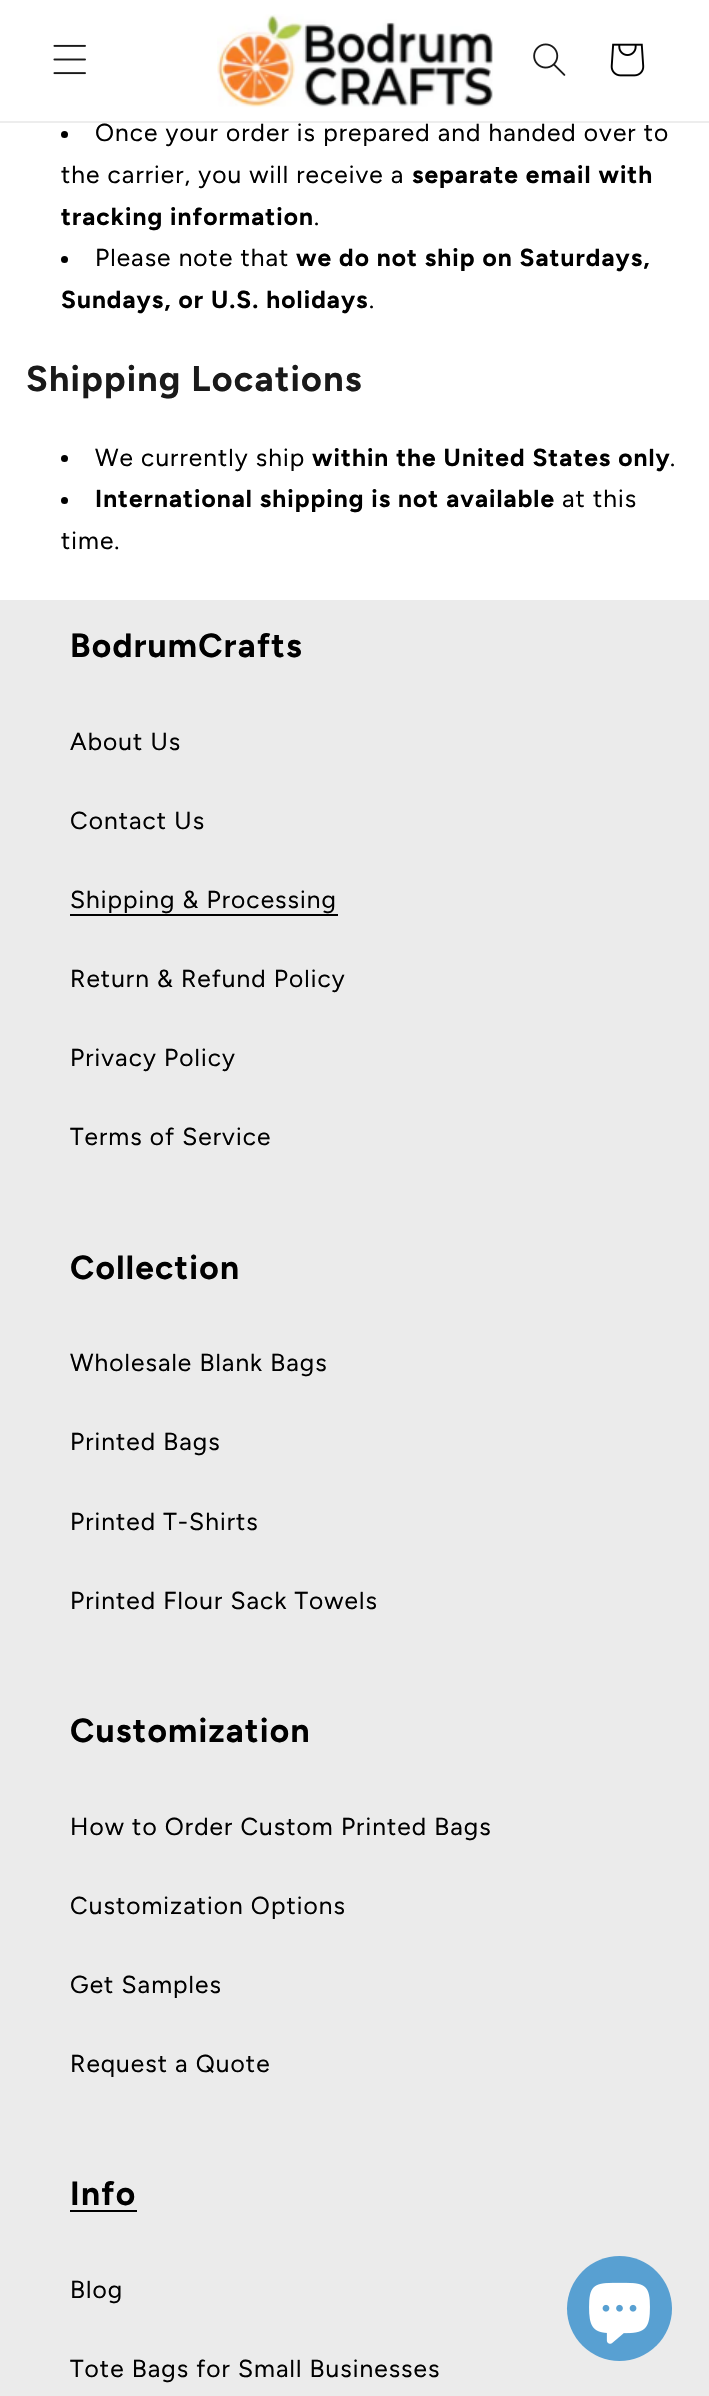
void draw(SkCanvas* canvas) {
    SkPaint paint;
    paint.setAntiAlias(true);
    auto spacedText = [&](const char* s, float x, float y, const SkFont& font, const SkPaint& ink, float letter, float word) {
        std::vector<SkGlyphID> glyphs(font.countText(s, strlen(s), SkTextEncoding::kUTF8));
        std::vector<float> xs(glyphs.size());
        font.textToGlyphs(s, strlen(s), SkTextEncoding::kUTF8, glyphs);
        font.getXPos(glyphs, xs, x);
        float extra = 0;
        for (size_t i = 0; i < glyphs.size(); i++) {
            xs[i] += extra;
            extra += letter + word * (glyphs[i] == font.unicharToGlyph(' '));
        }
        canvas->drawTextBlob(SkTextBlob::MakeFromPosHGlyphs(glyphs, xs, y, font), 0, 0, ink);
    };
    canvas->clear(0xFFFFFFFF);
    paint.setColor(0xFFEDEDED);
    canvas->drawRect(SkRect::MakeXYWH(0, 121, 709, 2), paint);
    canvas->drawImageRect(SkImages::DeferredFromEncodedData(SkData::MakeFromFileName("img1.png")), SkRect::MakeXYWH(53, 44, 33, 31), SkSamplingOptions());
    canvas->drawImageRect(SkImages::DeferredFromEncodedData(SkData::MakeFromFileName("img2.png")), SkRect::MakeXYWH(217, 14, 276, 94), SkSamplingOptions());
    canvas->drawImageRect(SkImages::DeferredFromEncodedData(SkData::MakeFromFileName("img3.png")), SkRect::MakeXYWH(533, 43, 33, 33), SkSamplingOptions());
    canvas->drawImageRect(SkImages::DeferredFromEncodedData(SkData::MakeFromFileName("img4.png")), SkRect::MakeXYWH(610, 43, 35, 34), SkSamplingOptions());
    paint.setColor(0xFF000000);
    canvas->drawCircle(64.5f, 134.5f, 3.5f, paint);
    SkFont font1(fontMgr->matchFamilyStyle("Figtree", SkFontStyle::Normal()), 24.5f);
    font1.setSubpixel(true);
    spacedText("Once your order is prepared and handed over to", 95, 141, font1, paint, 1.05f, 0);
    spacedText("the carrier, you will receive a", 61, 183, font1, paint, 1.05f, 0);
    SkFont font2(fontMgr->matchFamilyStyle("Figtree", SkFontStyle::Bold()), 24.5f);
    font2.setSubpixel(true);
    spacedText("separate email with", 412, 183, font2, paint, 1.05f, 0);
    spacedText("tracking information", 61, 225, font2, paint, 1.05f, 0);
    spacedText(".", 314, 225, font1, paint, 1.05f, 0);
    canvas->drawCircle(64.5f, 259.5f, 3.5f, paint);
    spacedText("Please note that", 95, 266, font1, paint, 1.05f, 0);
    spacedText("we do not ship on Saturdays,", 296, 266, font2, paint, 1.05f, 0);
    spacedText("Sundays, or U.S. holidays", 61, 308, font2, paint, 1.05f, 0);
    spacedText(".", 369, 308, font1, paint, 1.05f, 0);
    SkFont font3(fontMgr->matchFamilyStyle("Figtree", SkFontStyle::Bold()), 35.75f);
    font3.setSubpixel(true);
    paint.setColor(0xFF1A1A1A);
    spacedText("Shipping Locations", 26, 391, font3, paint, 1.25f, 0);
    paint.setColor(0xFF000000);
    canvas->drawCircle(64.5f, 458.5f, 3.5f, paint);
    spacedText("We currently ship", 95, 466, font1, paint, 1.05f, 0);
    spacedText("within the United States only", 312, 466, font2, paint, 1.05f, 0);
    spacedText(".", 670, 466, font1, paint, 1.05f, 0);
    canvas->drawCircle(64.5f, 500.5f, 3.5f, paint);
    spacedText("International shipping is not available", 95, 507, font2, paint, 1.05f, 0);
    spacedText("at this", 562, 507, font1, paint, 1.05f, 0);
    spacedText("time.", 61, 549, font1, paint, 1.05f, 0);
    paint.setColor(0xFFEBEBEB);
    canvas->drawRect(SkRect::MakeXYWH(0, 600, 709, 1796), paint);
    SkFont font4(fontMgr->matchFamilyStyle("Figtree", SkFontStyle::Bold()), 33.5f);
    font4.setSubpixel(true);
    paint.setColor(0xFF000000);
    spacedText("BodrumCrafts", 70, 657, font4, paint, 1.25f, 0);
    spacedText("About Us", 70, 750, font1, paint, 1.05f, 0);
    spacedText("Contact Us", 70, 829, font1, paint, 1.05f, 0);
    spacedText("Shipping & Processing", 70, 908, font1, paint, 1.05f, 0);
    canvas->drawRect(SkRect::MakeXYWH(70, 914, 268, 2), paint);
    spacedText("Return & Refund Policy", 70, 987, font1, paint, 1.05f, 0);
    spacedText("Privacy Policy", 70, 1066, font1, paint, 1.05f, 0);
    spacedText("Terms of Service", 70, 1145, font1, paint, 1.05f, 0);
    spacedText("Collection", 70, 1279, font4, paint, 1.25f, 0);
    spacedText("Wholesale Blank Bags", 70, 1371, font1, paint, 1.05f, 0);
    spacedText("Printed Bags", 70, 1450, font1, paint, 1.05f, 0);
    spacedText("Printed T-Shirts", 70, 1530, font1, paint, 1.05f, 0);
    spacedText("Printed Flour Sack Towels", 70, 1609, font1, paint, 1.05f, 0);
    spacedText("Customization", 70, 1742, font4, paint, 1.25f, 0);
    spacedText("How to Order Custom Printed Bags", 70, 1835, font1, paint, 1.05f, 0);
    spacedText("Customization Options", 70, 1914, font1, paint, 1.05f, 0);
    spacedText("Get Samples", 70, 1993, font1, paint, 1.05f, 0);
    spacedText("Request a Quote", 70, 2072, font1, paint, 1.05f, 0);
    spacedText("Info", 70, 2205, font4, paint, 1.25f, 0);
    canvas->drawRect(SkRect::MakeXYWH(70, 2210, 67, 2), paint);
    spacedText("Blog", 70, 2298, font1, paint, 1.05f, 0);
    spacedText("Tote Bags for Small Businesses", 70, 2377, font1, paint, 1.05f, 0);
    paint.setColor(0xFF58A0D2);
    canvas->drawCircle(619.5f, 2308.5f, 52.5f, paint);
    canvas->drawImageRect(SkImages::DeferredFromEncodedData(SkData::MakeFromFileName("img5.png")), SkRect::MakeXYWH(589, 2282, 61, 62), SkSamplingOptions());
}
